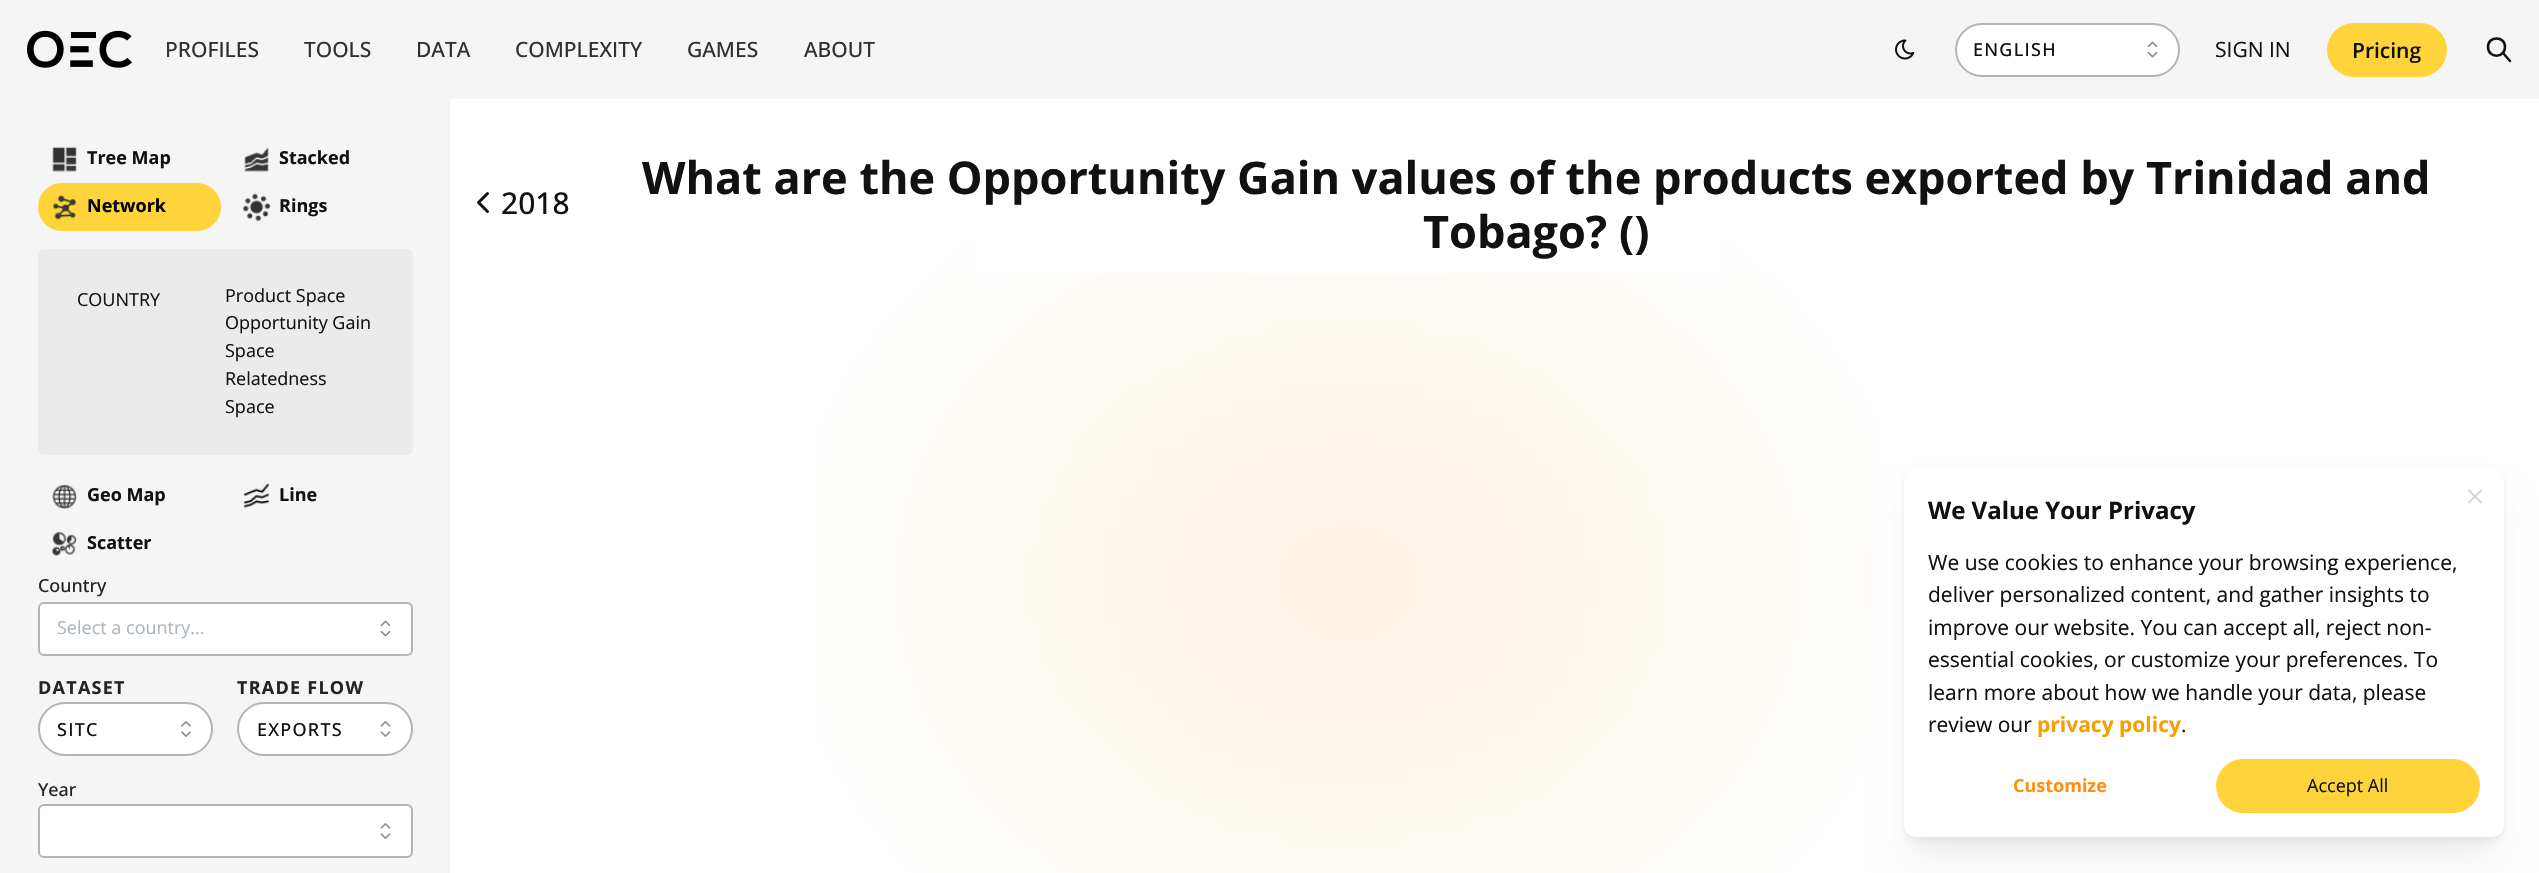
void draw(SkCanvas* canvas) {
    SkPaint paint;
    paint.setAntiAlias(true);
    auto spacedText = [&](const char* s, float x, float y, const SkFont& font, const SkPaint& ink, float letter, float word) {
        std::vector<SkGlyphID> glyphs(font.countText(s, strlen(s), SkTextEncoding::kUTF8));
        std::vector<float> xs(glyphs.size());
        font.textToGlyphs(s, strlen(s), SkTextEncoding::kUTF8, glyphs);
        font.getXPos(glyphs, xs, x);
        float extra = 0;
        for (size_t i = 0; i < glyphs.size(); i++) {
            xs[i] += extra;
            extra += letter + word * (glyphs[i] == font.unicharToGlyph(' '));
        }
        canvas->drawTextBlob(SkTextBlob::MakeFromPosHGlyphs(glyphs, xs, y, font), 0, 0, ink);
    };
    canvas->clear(0xFFFFFFFF);
    paint.setColor(0xFFF5F5F5);
    canvas->drawRect(SkRect::MakeXYWH(0, 0, 2539, 99), paint);
    canvas->drawImageRect(SkImages::DeferredFromEncodedData(SkData::MakeFromFileName("img1.png")), SkRect::MakeXYWH(27, 30, 105, 38), SkSamplingOptions());
    SkFont font1(fontMgr->matchFamilyStyle("Open Sans", SkFontStyle(500, SkFontStyle::kNormal_Width, SkFontStyle::kUpright_Slant)), 21);
    font1.setSubpixel(true);
    paint.setColor(0xFF313131);
    canvas->drawString("PROFILES", 165, 57, font1, paint);
    canvas->drawString("TOOLS", 304, 57, font1, paint);
    canvas->drawString("DATA", 416, 57, font1, paint);
    canvas->drawString("COMPLEXITY", 515, 57, font1, paint);
    canvas->drawString("GAMES", 687, 57, font1, paint);
    canvas->drawString("ABOUT", 804, 57, font1, paint);
    canvas->drawImageRect(SkImages::DeferredFromEncodedData(SkData::MakeFromFileName("img2.png")), SkRect::MakeXYWH(1895, 39, 20, 21), SkSamplingOptions());
    paint.setColor(0xFFFFFFFF);
    canvas->drawRoundRect(SkRect::MakeXYWH(1956, 24, 223, 52), 26, 26, paint);
    paint.setStyle(SkPaint::kStroke_Style);
    paint.setStrokeWidth(2);
    paint.setColor(0xFFB4B4B4);
    canvas->drawRoundRect(SkRect::MakeXYWH(1956, 24, 223, 52), 26, 26, paint);
    SkFont font2(fontMgr->matchFamilyStyle("Open Sans", SkFontStyle(500, SkFontStyle::kNormal_Width, SkFontStyle::kUpright_Slant)), 18);
    font2.setSubpixel(true);
    paint.setStyle(SkPaint::kFill_Style);
    paint.setColor(0xFF101112);
    spacedText("ENGLISH", 1973, 56, font2, paint, 1.25f, 0);
    canvas->drawImageRect(SkImages::DeferredFromEncodedData(SkData::MakeFromFileName("img3.png")), SkRect::MakeXYWH(2147, 41, 11, 17), SkSamplingOptions());
    SkFont font3(fontMgr->matchFamilyStyle("Open Sans", SkFontStyle::Normal()), 21);
    font3.setSubpixel(true);
    canvas->drawString("SIGN IN", 2215, 57, font3, paint);
    paint.setColor(0xFFFFD43B);
    canvas->drawRoundRect(SkRect::MakeXYWH(2327, 23, 120, 54), 27, 27, paint);
    SkFont font4(fontMgr->matchFamilyStyle("Open Sans", SkFontStyle(600, SkFontStyle::kNormal_Width, SkFontStyle::kUpright_Slant)), 21);
    font4.setSubpixel(true);
    paint.setColor(0xFF101112);
    canvas->drawString("Pricing", 2352, 58, font4, paint);
    paint.setStyle(SkPaint::kStroke_Style);
    paint.setStrokeWidth(2.5f);
    paint.setStrokeCap(SkPaint::kRound_Cap);
    paint.setStrokeJoin(SkPaint::kRound_Join);
    canvas->drawPath(SkPathBuilder().moveTo(2488, 47).cubicTo(2488, 58.5f, 2505, 58.5f, 2505, 47).cubicTo(2505, 35.5f, 2488, 35.5f, 2488, 47).moveTo(2510, 61).lineTo(2503, 53).detach(), paint);
    paint.setStyle(SkPaint::kFill_Style);
    paint.setColor(0xFFF5F5F5);
    canvas->drawRect(SkRect::MakeXYWH(0, 99, 450, 774), paint);
    canvas->drawImageRect(SkImages::DeferredFromEncodedData(SkData::MakeFromFileName("img4.png")), SkRect::MakeXYWH(52, 146, 25, 26), SkSamplingOptions());
    SkFont font5(fontMgr->matchFamilyStyle("Open Sans", SkFontStyle::Bold()), 18);
    font5.setSubpixel(true);
    paint.setColor(0xFF101112);
    canvas->drawString("Tree Map", 87, 164, font5, paint);
    canvas->drawImageRect(SkImages::DeferredFromEncodedData(SkData::MakeFromFileName("img5.png")), SkRect::MakeXYWH(244, 147, 25, 25), SkSamplingOptions());
    canvas->drawString("Stacked", 279, 164, font5, paint);
    paint.setColor(0xFFFFD43B);
    canvas->drawRoundRect(SkRect::MakeXYWH(38, 183, 183, 48), 24, 24, paint);
    canvas->drawImageRect(SkImages::DeferredFromEncodedData(SkData::MakeFromFileName("img6.png")), SkRect::MakeXYWH(53, 195, 23, 25), SkSamplingOptions());
    paint.setColor(0xFF000000);
    canvas->drawString("Network", 87, 212, font5, paint);
    canvas->drawImageRect(SkImages::DeferredFromEncodedData(SkData::MakeFromFileName("img7.png")), SkRect::MakeXYWH(243, 193, 28, 29), SkSamplingOptions());
    paint.setColor(0xFF101112);
    canvas->drawString("Rings", 279, 212, font5, paint);
    paint.setColor(0xFFEBEBEB);
    canvas->drawRoundRect(SkRect::MakeXYWH(38, 249, 375, 206), 6, 6, paint);
    SkFont font6(fontMgr->matchFamilyStyle("Open Sans", SkFontStyle::Normal()), 18);
    font6.setSubpixel(true);
    paint.setColor(0xFF101112);
    canvas->drawString("COUNTRY", 77, 306, font6, paint);
    canvas->drawString("Product Space", 225, 302, font6, paint);
    canvas->drawString("Opportunity Gain", 225, 329, font6, paint);
    canvas->drawString("Space", 225, 357, font6, paint);
    canvas->drawString("Relatedness", 225, 385, font6, paint);
    canvas->drawString("Space", 225, 413, font6, paint);
    canvas->drawImageRect(SkImages::DeferredFromEncodedData(SkData::MakeFromFileName("img8.png")), SkRect::MakeXYWH(52, 484, 25, 25), SkSamplingOptions());
    canvas->drawString("Geo Map", 87, 501, font5, paint);
    canvas->drawImageRect(SkImages::DeferredFromEncodedData(SkData::MakeFromFileName("img9.png")), SkRect::MakeXYWH(243, 483, 26, 25), SkSamplingOptions());
    canvas->drawString("Line", 279, 501, font5, paint);
    canvas->drawImageRect(SkImages::DeferredFromEncodedData(SkData::MakeFromFileName("img10.png")), SkRect::MakeXYWH(52, 532, 25, 24), SkSamplingOptions());
    canvas->drawString("Scatter", 87, 549, font5, paint);
    paint.setColor(0xFF212529);
    canvas->drawString("Country", 38, 592, font2, paint);
    paint.setColor(0xFFFFFFFF);
    canvas->drawRoundRect(SkRect::MakeXYWH(39, 603, 373, 52), 5, 5, paint);
    paint.setStyle(SkPaint::kStroke_Style);
    paint.setStrokeWidth(2);
    paint.setStrokeCap(SkPaint::kButt_Cap);
    paint.setStrokeJoin(SkPaint::kMiter_Join);
    paint.setColor(0xFFB4B4B4);
    canvas->drawRoundRect(SkRect::MakeXYWH(39, 603, 373, 52), 5, 5, paint);
    paint.setStyle(SkPaint::kFill_Style);
    paint.setColor(0xFFADB5BD);
    canvas->drawString("Select a country...", 57, 634, font6, paint);
    canvas->drawImageRect(SkImages::DeferredFromEncodedData(SkData::MakeFromFileName("img3.png")), SkRect::MakeXYWH(380, 620, 11, 17), SkSamplingOptions());
    paint.setColor(0xFF212529);
    spacedText("DATASET", 38, 694, font5, paint, 1.25f, 0);
    paint.setColor(0xFFFFFFFF);
    canvas->drawRoundRect(SkRect::MakeXYWH(39, 703, 173, 52), 26, 26, paint);
    paint.setStyle(SkPaint::kStroke_Style);
    paint.setColor(0xFFB4B4B4);
    canvas->drawRoundRect(SkRect::MakeXYWH(39, 703, 173, 52), 26, 26, paint);
    paint.setStyle(SkPaint::kFill_Style);
    paint.setColor(0xFF101112);
    spacedText("SITC", 57, 736, font2, paint, 1.25f, 0);
    canvas->drawImageRect(SkImages::DeferredFromEncodedData(SkData::MakeFromFileName("img11.png")), SkRect::MakeXYWH(181, 721, 10, 16), SkSamplingOptions());
    paint.setColor(0xFF212529);
    spacedText("TRADE FLOW", 237, 694, font5, paint, 1.25f, 0);
    paint.setColor(0xFFFFFFFF);
    canvas->drawRoundRect(SkRect::MakeXYWH(238, 703, 174, 52), 26, 26, paint);
    paint.setStyle(SkPaint::kStroke_Style);
    paint.setColor(0xFFB4B4B4);
    canvas->drawRoundRect(SkRect::MakeXYWH(238, 703, 174, 52), 26, 26, paint);
    paint.setStyle(SkPaint::kFill_Style);
    paint.setColor(0xFF101112);
    spacedText("EXPORTS", 257, 736, font2, paint, 1.25f, 0);
    canvas->drawImageRect(SkImages::DeferredFromEncodedData(SkData::MakeFromFileName("img12.png")), SkRect::MakeXYWH(380, 721, 11, 16), SkSamplingOptions());
    paint.setColor(0xFF212529);
    canvas->drawString("Year", 38, 796, font2, paint);
    paint.setColor(0xFFFFFFFF);
    canvas->drawRoundRect(SkRect::MakeXYWH(39, 805, 373, 52), 5, 5, paint);
    paint.setStyle(SkPaint::kStroke_Style);
    paint.setColor(0xFFB4B4B4);
    canvas->drawRoundRect(SkRect::MakeXYWH(39, 805, 373, 52), 5, 5, paint);
    canvas->drawImageRect(SkImages::DeferredFromEncodedData(SkData::MakeFromFileName("img12.png")), SkRect::MakeXYWH(380, 823, 11, 16), SkSamplingOptions());
    paint.setStyle(SkPaint::kFill_Style);
    {
        const SkColor colors[] = {0xFFFFF2E3, 0xFFFFFFFF};
        const float stops[] = {0, 1};
        SkMatrix m = SkMatrix::Translate(1349, 582).preScale(585, 480);
        paint.setShader(SkGradientShader::MakeRadial({0, 0}, 1, colors, stops, 2, SkTileMode::kClamp, 0, &m));
        paint.setAlpha(255);
    }
    canvas->drawRect(SkRect::MakeXYWH(816, 146, 1066, 727), paint);
    paint.setShader(nullptr);
    paint.setColor(0xFFFFFFFF);
    canvas->drawRect(SkRect::MakeXYWH(974, 146, 750, 127), paint);
    paint.setStyle(SkPaint::kStroke_Style);
    paint.setStrokeWidth(3);
    paint.setStrokeCap(SkPaint::kRound_Cap);
    paint.setStrokeJoin(SkPaint::kRound_Join);
    paint.setColor(0xFF101112);
    canvas->drawPath(SkPathBuilder().moveTo(487.5f, 193.5f).lineTo(478.5f, 202.5f).lineTo(487.5f, 211.5f).detach(), paint);
    SkFont font7(fontMgr->matchFamilyStyle("Open Sans", SkFontStyle(500, SkFontStyle::kNormal_Width, SkFontStyle::kUpright_Slant)), 30);
    font7.setSubpixel(true);
    paint.setStyle(SkPaint::kFill_Style);
    canvas->drawString("2018", 501, 214, font7, paint);
    SkFont font8(fontMgr->matchFamilyStyle("Open Sans", SkFontStyle::Bold()), 45);
    font8.setSubpixel(true);
    canvas->drawString("What are the Opportunity Gain values of the products exported by Trinidad and", 642, 194, font8, paint);
    canvas->drawString("Tobago? ()", 1423, 248, font8, paint);
    paint.setColor(0x0A000000);
    paint.setMaskFilter(SkMaskFilter::MakeBlur(kNormal_SkBlurStyle, 7.5f));
    canvas->drawRoundRect(SkRect::MakeXYWH(1911, 491, 585, 354), 5, 5, paint);
    paint.setMaskFilter(nullptr);
    paint.setColor(0x0D000000);
    paint.setMaskFilter(SkMaskFilter::MakeBlur(kNormal_SkBlurStyle, 19));
    canvas->drawRoundRect(SkRect::MakeXYWH(1911, 506, 585, 354), 5, 5, paint);
    paint.setMaskFilter(nullptr);
    paint.setMaskFilter(SkMaskFilter::MakeBlur(kNormal_SkBlurStyle, 2));
    canvas->drawRoundRect(SkRect::MakeXYWH(1904, 470, 600, 369), 12, 12, paint);
    paint.setMaskFilter(nullptr);
    paint.setColor(0xFFFFFFFF);
    canvas->drawRoundRect(SkRect::MakeXYWH(1904, 468, 600, 369), 12, 12, paint);
    canvas->drawImageRect(SkImages::DeferredFromEncodedData(SkData::MakeFromFileName("img13.png")), SkRect::MakeXYWH(2468, 489, 14, 15), SkSamplingOptions());
    SkFont font9(fontMgr->matchFamilyStyle("Open Sans", SkFontStyle::Bold()), 24);
    font9.setSubpixel(true);
    paint.setColor(0xFF101112);
    canvas->drawString("We Value Your Privacy", 1928, 519, font9, paint);
    canvas->drawString("We use cookies to enhance your browsing experience,", 1928, 570, font3, paint);
    canvas->drawString("deliver personalized content, and gather insights to", 1928, 602, font3, paint);
    canvas->drawString("improve our website. You can accept all, reject non-", 1928, 635, font3, paint);
    canvas->drawString("essential cookies, or customize your preferences. To", 1928, 667, font3, paint);
    canvas->drawString("learn more about how we handle your data, please", 1928, 700, font3, paint);
    canvas->drawString("review our", 1928, 732, font3, paint);
    SkFont font10(fontMgr->matchFamilyStyle("Open Sans", SkFontStyle::Bold()), 21);
    font10.setSubpixel(true);
    paint.setColor(0xFFF59F00);
    canvas->drawString("privacy policy", 2037, 732, font10, paint);
    paint.setColor(0xFF101112);
    canvas->drawString(".", 2181, 732, font3, paint);
    paint.setColor(0xFFFF8F0D);
    canvas->drawString("Customize", 2013, 792, font5, paint);
    paint.setColor(0xFFFFD43B);
    canvas->drawRoundRect(SkRect::MakeXYWH(2216, 759, 264, 54), 27, 27, paint);
    paint.setColor(0xFF101112);
    canvas->drawString("Accept All", 2307, 792, font6, paint);
}
